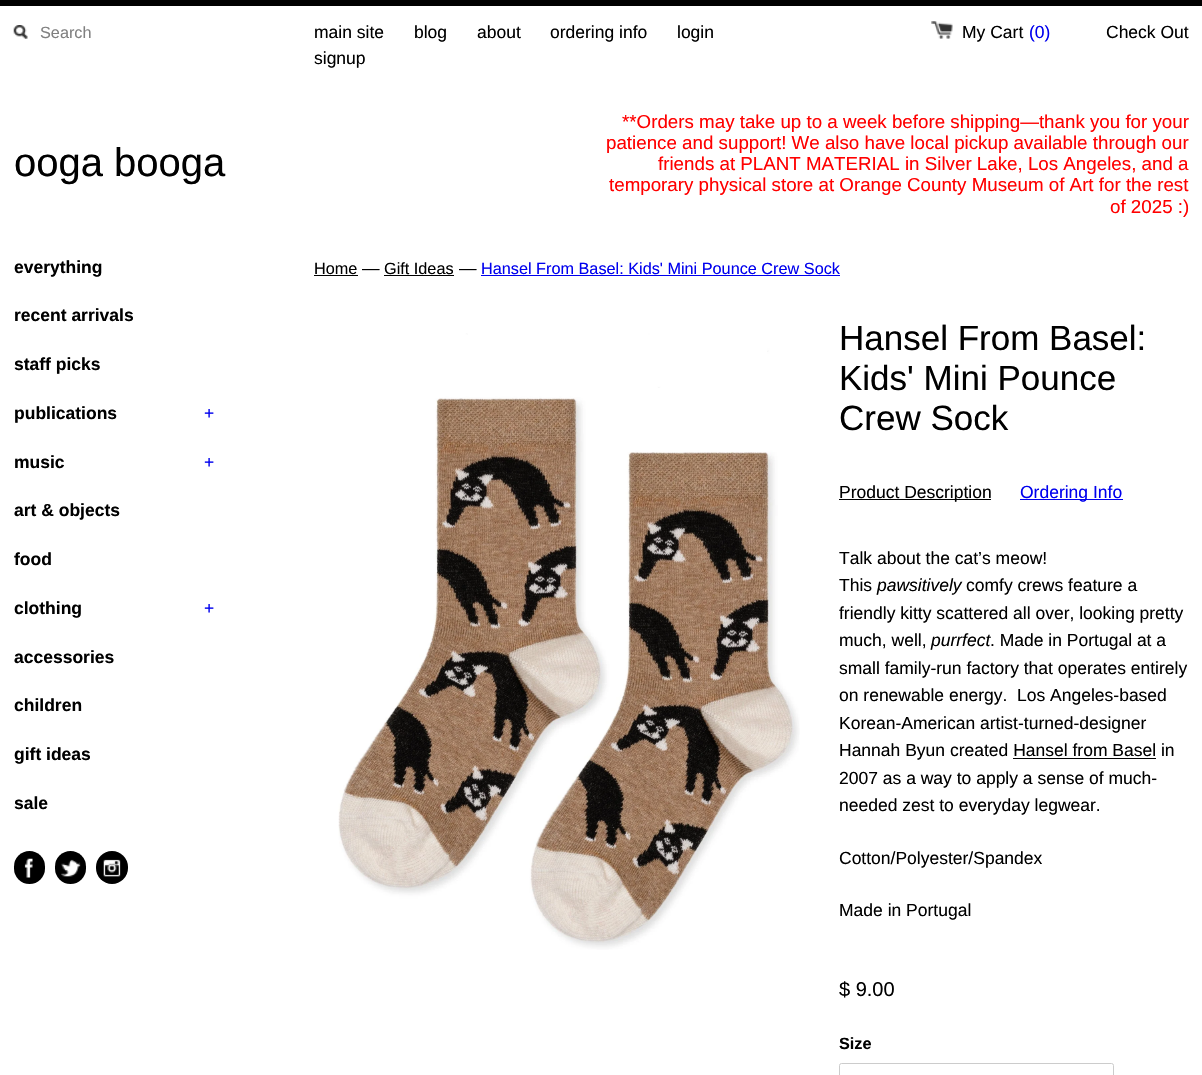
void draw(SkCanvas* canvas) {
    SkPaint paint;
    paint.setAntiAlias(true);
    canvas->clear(0xFFFFFFFF);
    paint.setColor(0xFF000000);
    canvas->drawRect(SkRect::MakeXYWH(0, 0, 1202, 6), paint);
    canvas->drawImageRect(SkImages::DeferredFromEncodedData(SkData::MakeFromFileName("img1.png")), SkRect::MakeXYWH(13, 25, 15, 14), SkSamplingOptions());
    SkFont font1(fontMgr->matchFamilyStyle("Liberation Sans", SkFontStyle::Normal()), 16.25f);
    font1.setSubpixel(true);
    paint.setColor(0xFF808080);
    canvas->drawString("Search", 40, 38, font1, paint);
    SkFont font2(fontMgr->matchFamilyStyle("Liberation Sans", SkFontStyle::Normal()), 17.5f);
    font2.setSubpixel(true);
    paint.setColor(0xFF000000);
    canvas->drawString("main site", 314, 38, font2, paint);
    canvas->drawString("blog", 414, 38, font2, paint);
    canvas->drawString("about", 477, 38, font2, paint);
    canvas->drawString("ordering info", 550, 38, font2, paint);
    canvas->drawString("login", 677, 38, font2, paint);
    canvas->drawString("signup", 314, 64, font2, paint);
    canvas->drawImageRect(SkImages::DeferredFromEncodedData(SkData::MakeFromFileName("img2.png")), SkRect::MakeXYWH(931, 21, 22, 18), SkSamplingOptions());
    canvas->drawString("My Cart", 962, 38, font2, paint);
    paint.setColor(0xFF0000EE);
    canvas->drawString("(0)", 1029, 38, font2, paint);
    paint.setColor(0xFF000000);
    canvas->drawString("Check Out", 1106, 38, font2, paint);
    SkFont font3(fontMgr->matchFamilyStyle("Liberation Sans", SkFontStyle::Normal()), 40);
    font3.setSubpixel(true);
    canvas->drawString("ooga booga", 14, 176, font3, paint);
    SkFont font4(fontMgr->matchFamilyStyle("Liberation Sans", SkFontStyle::Normal()), 18.75f);
    font4.setSubpixel(true);
    paint.setColor(0xFFFF0000);
    canvas->drawString("**Orders may take up to a week before shipping—thank you for your", 622, 128, font4, paint);
    canvas->drawString("patience and support! We also have local pickup available through our", 606, 149, font4, paint);
    canvas->drawString("friends at PLANT MATERIAL in Silver Lake, Los Angeles, and a", 658, 170, font4, paint);
    canvas->drawString("temporary physical store at Orange County Museum of Art for the rest", 609, 191, font4, paint);
    canvas->drawString("of 2025 :)", 1110, 213, font4, paint);
    SkFont font5(fontMgr->matchFamilyStyle("Liberation Sans", SkFontStyle::Bold()), 17.5f);
    font5.setSubpixel(true);
    paint.setColor(0xFF000000);
    canvas->drawString("everything", 14, 273, font5, paint);
    canvas->drawString("recent arrivals", 14, 321, font5, paint);
    canvas->drawString("staff picks", 14, 370, font5, paint);
    canvas->drawString("publications", 14, 419, font5, paint);
    paint.setColor(0xFF0000EE);
    canvas->drawString("+", 204, 419, font2, paint);
    paint.setColor(0xFF000000);
    canvas->drawString("music", 14, 468, font5, paint);
    paint.setColor(0xFF0000EE);
    canvas->drawString("+", 204, 468, font2, paint);
    paint.setColor(0xFF000000);
    canvas->drawString("art & objects", 14, 516, font5, paint);
    canvas->drawString("food", 14, 565, font5, paint);
    canvas->drawString("clothing", 14, 614, font5, paint);
    paint.setColor(0xFF0000EE);
    canvas->drawString("+", 204, 614, font2, paint);
    paint.setColor(0xFF000000);
    canvas->drawString("accessories", 14, 663, font5, paint);
    canvas->drawString("children", 14, 711, font5, paint);
    canvas->drawString("gift ideas", 14, 760, font5, paint);
    canvas->drawString("sale", 14, 809, font5, paint);
    canvas->drawRoundRect(SkRect::MakeXYWH(14, 851, 31, 33), 15.5f, 15.5f, paint);
    canvas->drawImageRect(SkImages::DeferredFromEncodedData(SkData::MakeFromFileName("img3.png")), SkRect::MakeXYWH(24, 858, 9, 20), SkSamplingOptions());
    canvas->drawRoundRect(SkRect::MakeXYWH(55, 851, 31, 33), 15.5f, 15.5f, paint);
    canvas->drawImageRect(SkImages::DeferredFromEncodedData(SkData::MakeFromFileName("img4.png")), SkRect::MakeXYWH(61, 859, 20, 18), SkSamplingOptions());
    canvas->drawRoundRect(SkRect::MakeXYWH(96, 851, 32, 33), 16, 16, paint);
    canvas->drawImageRect(SkImages::DeferredFromEncodedData(SkData::MakeFromFileName("img5.png")), SkRect::MakeXYWH(103, 859, 18, 18), SkSamplingOptions());
    canvas->drawString("Home", 314, 274, font1, paint);
    canvas->drawRect(SkRect::MakeXYWH(314, 275, 44, 1), paint);
    canvas->drawString("—", 362, 274, font2, paint);
    canvas->drawString("Gift Ideas", 384, 274, font1, paint);
    canvas->drawRect(SkRect::MakeXYWH(384, 275, 70, 1), paint);
    canvas->drawString("—", 459, 274, font2, paint);
    paint.setColor(0xFF0000EE);
    canvas->drawString("Hansel From Basel: Kids' Mini Pounce Crew Sock", 481, 274, font1, paint);
    canvas->drawRect(SkRect::MakeXYWH(481, 275, 359, 1), paint);
    canvas->drawImageRect(SkImages::DeferredFromEncodedData(SkData::MakeFromFileName("img6.png")), SkRect::MakeXYWH(338, 333, 462, 617), SkSamplingOptions());
    SkFont font6(fontMgr->matchFamilyStyle("Liberation Sans", SkFontStyle::Normal()), 35);
    font6.setSubpixel(true);
    paint.setColor(0xFF000000);
    canvas->drawString("Hansel From Basel:", 839, 350, font6, paint);
    canvas->drawString("Kids' Mini Pounce", 839, 390, font6, paint);
    canvas->drawString("Crew Sock", 839, 430, font6, paint);
    canvas->drawRect(SkRect::MakeXYWH(839, 499, 152, 1), paint);
    canvas->drawString("Product Description", 839, 498, font2, paint);
    paint.setColor(0xFF0000EE);
    canvas->drawRect(SkRect::MakeXYWH(1020, 499, 103, 1), paint);
    canvas->drawString("Ordering Info", 1020, 498, font2, paint);
    paint.setColor(0xFF000000);
    canvas->drawString("Talk about the cat’s meow!", 839, 564, font2, paint);
    canvas->drawString("This", 839, 591, font2, paint);
    SkFont font7(fontMgr->matchFamilyStyle("Liberation Sans", SkFontStyle::Italic()), 17.5f);
    font7.setSubpixel(true);
    canvas->drawString("pawsitively", 877, 591, font7, paint);
    canvas->drawString("comfy crews feature a", 966, 591, font2, paint);
    canvas->drawString("friendly kitty scattered all over, looking pretty", 839, 619, font2, paint);
    canvas->drawString("much, well,", 839, 646, font2, paint);
    canvas->drawString("purrfect", 931, 646, font7, paint);
    canvas->drawString(". Made in Portugal at a", 990, 646, font2, paint);
    canvas->drawString("small family-run factory that operates entirely", 839, 674, font2, paint);
    canvas->drawString("on renewable energy.", 839, 701, font2, paint);
    canvas->drawString("Los Angeles-based", 1017, 701, font2, paint);
    canvas->drawString("Korean-American artist-turned-designer", 839, 729, font2, paint);
    canvas->drawString("Hannah Byun created Hansel from Basel in", 839, 756, font2, paint);
    canvas->drawRect(SkRect::MakeXYWH(1013, 758, 143, 1), paint);
    canvas->drawString("2007 as a way to apply a sense of much-", 839, 784, font2, paint);
    canvas->drawString("needed zest to everyday legwear.", 839, 811, font2, paint);
    canvas->drawString("Cotton/Polyester/Spandex", 839, 864, font2, paint);
    canvas->drawString("Made in Portugal", 839, 916, font2, paint);
    SkFont font8(fontMgr->matchFamilyStyle("Liberation Sans", SkFontStyle::Normal()), 20);
    font8.setSubpixel(true);
    canvas->drawString("$ 9.00", 839, 996, font8, paint);
    SkFont font9(fontMgr->matchFamilyStyle("Liberation Sans", SkFontStyle::Bold()), 16.25f);
    font9.setSubpixel(true);
    canvas->drawString("Size", 839, 1049, font9, paint);
    paint.setStyle(SkPaint::kStroke_Style);
    paint.setStrokeWidth(1);
    paint.setColor(0xFFCCCCCC);
    canvas->drawRoundRect(SkRect::MakeXYWH(839.5f, 1063.5f, 274, 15), 2, 2, paint);
}
